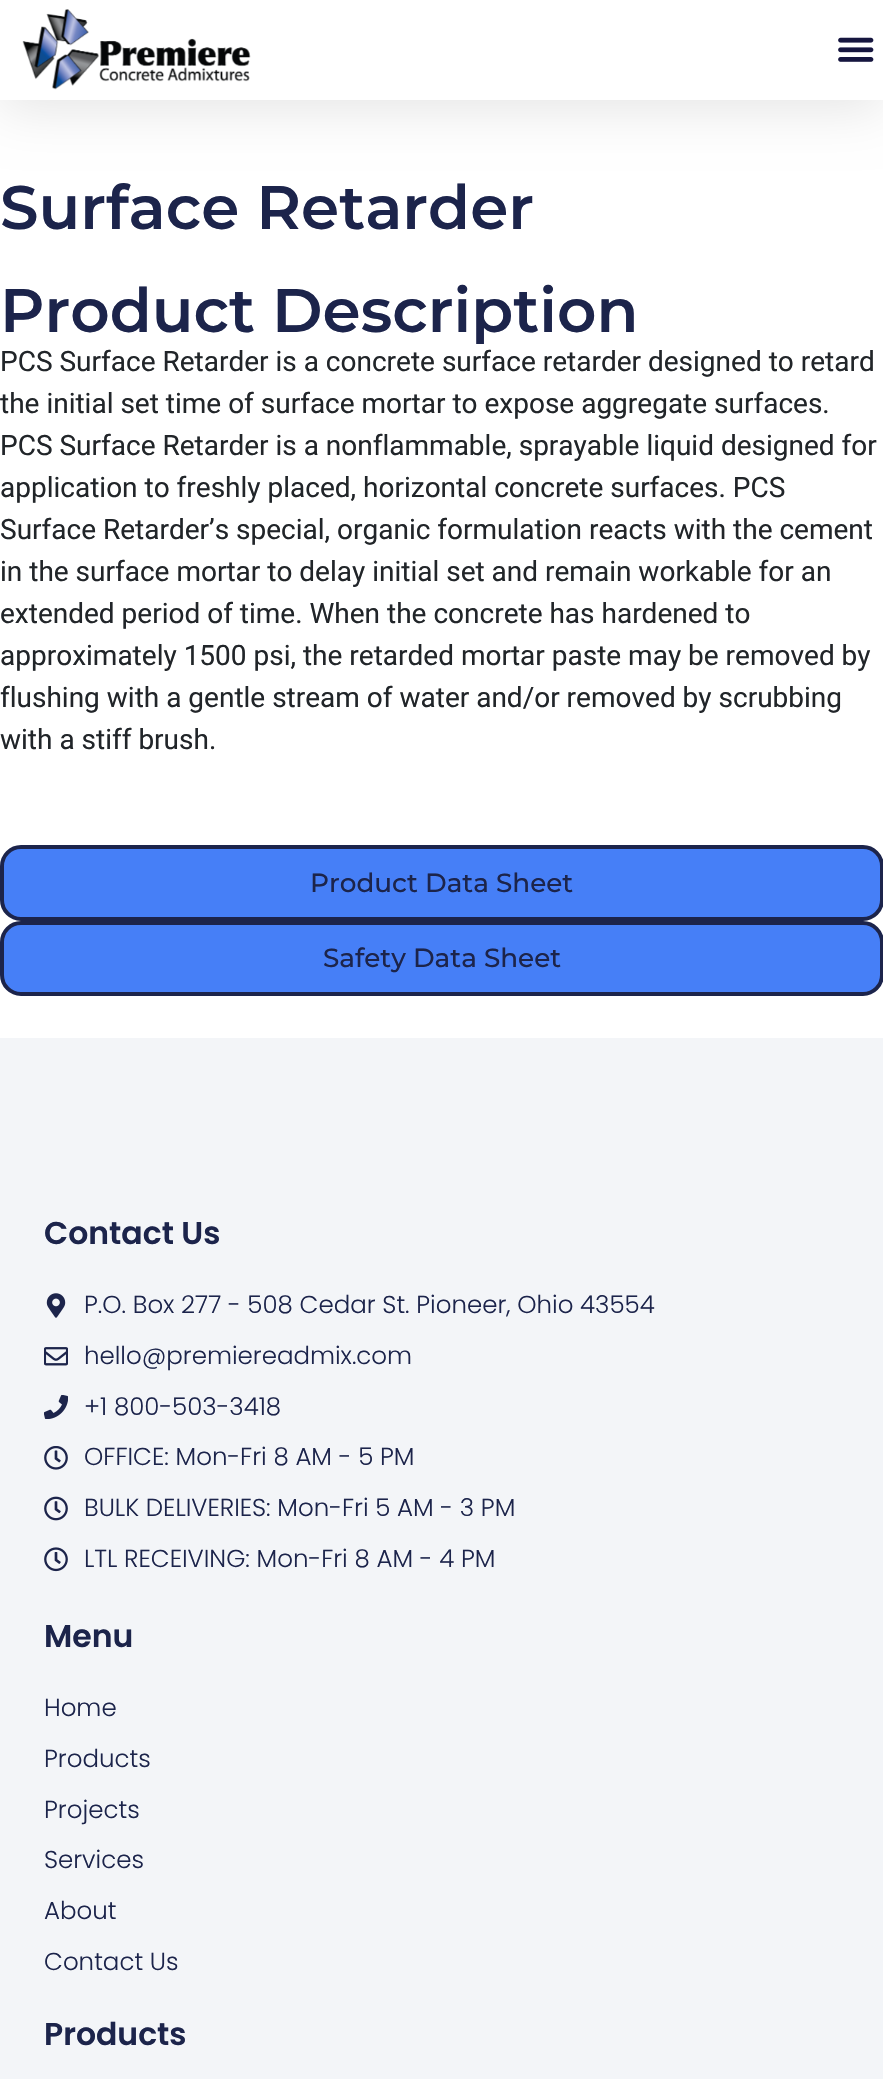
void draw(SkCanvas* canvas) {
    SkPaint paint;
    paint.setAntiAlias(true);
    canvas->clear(0xFFFFFFFF);
    paint.setColor(0x1A000000);
    paint.setMaskFilter(SkMaskFilter::MakeBlur(kNormal_SkBlurStyle, 26));
    canvas->drawRect(SkRect::MakeXYWH(0, 9, 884, 100), paint);
    paint.setMaskFilter(nullptr);
    paint.setColor(0xFFFFFFFF);
    canvas->drawRect(SkRect::MakeXYWH(0, 0, 883, 100), paint);
    canvas->drawImageRect(SkImages::DeferredFromEncodedData(SkData::MakeFromFileName("img1.png")), SkRect::MakeXYWH(22, 9, 229, 81), SkSamplingOptions());
    canvas->drawImageRect(SkImages::DeferredFromEncodedData(SkData::MakeFromFileName("img2.png")), SkRect::MakeXYWH(838, 37, 36, 25), SkSamplingOptions());
    SkFont font1(fontMgr->matchFamilyStyle("Montserrat", SkFontStyle(600, SkFontStyle::kNormal_Width, SkFontStyle::kUpright_Slant)), 61.25f);
    font1.setSubpixel(true);
    paint.setColor(0xFF1C244B);
    canvas->drawString("Surface Retarder", 0, 229, font1, paint);
    canvas->drawString("Product Description", 0, 332, font1, paint);
    SkFont font2(fontMgr->matchFamilyStyle("Roboto", SkFontStyle::Normal()), 28);
    font2.setSubpixel(true);
    paint.setColor(0xFF212529);
    canvas->drawString("PCS Surface Retarder is a concrete surface retarder designed to retard", 0, 371, font2, paint);
    canvas->drawString("the initial set time of surface mortar to expose aggregate surfaces.", 0, 413, font2, paint);
    canvas->drawString("PCS Surface Retarder is a nonflammable, sprayable liquid designed for", 0, 455, font2, paint);
    canvas->drawString("application to freshly placed, horizontal concrete surfaces. PCS", 0, 497, font2, paint);
    canvas->drawString("Surface Retarder’s special, organic formulation reacts with the cement", 0, 539, font2, paint);
    canvas->drawString("in the surface mortar to delay initial set and remain workable for an", 0, 581, font2, paint);
    canvas->drawString("extended period of time. When the concrete has hardened to", 0, 623, font2, paint);
    canvas->drawString("approximately 1500 psi, the retarded mortar paste may be removed by", 0, 665, font2, paint);
    canvas->drawString("flushing with a gentle stream of water and/or removed by scrubbing", 0, 707, font2, paint);
    canvas->drawString("with a stiff brush.", 0, 749, font2, paint);
    paint.setColor(0xFF467FF7);
    canvas->drawRoundRect(SkRect::MakeXYWH(2, 847, 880, 72), 19, 19, paint);
    paint.setStyle(SkPaint::kStroke_Style);
    paint.setStrokeWidth(4);
    paint.setColor(0xFF1C244B);
    canvas->drawRoundRect(SkRect::MakeXYWH(2, 847, 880, 72), 19, 19, paint);
    SkFont font3(fontMgr->matchFamilyStyle("Montserrat", SkFontStyle(500, SkFontStyle::kNormal_Width, SkFontStyle::kUpright_Slant)), 26.25f);
    font3.setSubpixel(true);
    paint.setStyle(SkPaint::kFill_Style);
    canvas->drawString("Product Data Sheet", 310, 892, font3, paint);
    paint.setColor(0xFF467FF7);
    canvas->drawRoundRect(SkRect::MakeXYWH(2, 923, 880, 71), 19, 19, paint);
    paint.setStyle(SkPaint::kStroke_Style);
    paint.setColor(0xFF1C244B);
    canvas->drawRoundRect(SkRect::MakeXYWH(2, 923, 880, 71), 19, 19, paint);
    paint.setStyle(SkPaint::kFill_Style);
    canvas->drawString("Safety Data Sheet", 323, 967, font3, paint);
    paint.setColor(0xFFF3F5F8);
    canvas->drawRect(SkRect::MakeXYWH(0, 1038, 883, 1041), paint);
    SkFont font4(fontMgr->matchFamilyStyle("Poppins", SkFontStyle(600, SkFontStyle::kNormal_Width, SkFontStyle::kUpright_Slant)), 31.5f);
    font4.setSubpixel(true);
    paint.setColor(0xFF1C244B);
    canvas->drawString("Contact Us", 44, 1244, font4, paint);
    canvas->drawImageRect(SkImages::DeferredFromEncodedData(SkData::MakeFromFileName("img3.png")), SkRect::MakeXYWH(46, 1293, 20, 25), SkSamplingOptions());
    SkFont font5(fontMgr->matchFamilyStyle("Poppins", SkFontStyle(300, SkFontStyle::kNormal_Width, SkFontStyle::kUpright_Slant)), 24.5f);
    font5.setSubpixel(true);
    canvas->drawString("P.O. Box 277 - 508 Cedar St. Pioneer, Ohio 43554", 84, 1313, font5, paint);
    canvas->drawImageRect(SkImages::DeferredFromEncodedData(SkData::MakeFromFileName("img4.png")), SkRect::MakeXYWH(44, 1347, 24, 19), SkSamplingOptions());
    canvas->drawString("hello@premiereadmix.com", 84, 1364, font5, paint);
    canvas->drawImageRect(SkImages::DeferredFromEncodedData(SkData::MakeFromFileName("img5.png")), SkRect::MakeXYWH(44, 1395, 24, 24), SkSamplingOptions());
    canvas->drawString("+1 800-503-3418", 84, 1415, font5, paint);
    canvas->drawImageRect(SkImages::DeferredFromEncodedData(SkData::MakeFromFileName("img6.png")), SkRect::MakeXYWH(44, 1446, 24, 24), SkSamplingOptions());
    canvas->drawString("OFFICE: Mon-Fri 8 AM - 5 PM", 84, 1465, font5, paint);
    canvas->drawImageRect(SkImages::DeferredFromEncodedData(SkData::MakeFromFileName("img7.png")), SkRect::MakeXYWH(44, 1496, 24, 25), SkSamplingOptions());
    canvas->drawString("BULK DELIVERIES: Mon-Fri 5 AM - 3 PM", 84, 1516, font5, paint);
    canvas->drawImageRect(SkImages::DeferredFromEncodedData(SkData::MakeFromFileName("img8.png")), SkRect::MakeXYWH(44, 1547, 24, 25), SkSamplingOptions());
    canvas->drawString("LTL RECEIVING: Mon-Fri 8 AM - 4 PM", 84, 1567, font5, paint);
    canvas->drawString("Menu", 44, 1647, font4, paint);
    canvas->drawString("Home", 44, 1716, font5, paint);
    canvas->drawString("Products", 44, 1767, font5, paint);
    canvas->drawString("Projects", 44, 1818, font5, paint);
    canvas->drawString("Services", 44, 1868, font5, paint);
    canvas->drawString("About", 44, 1919, font5, paint);
    canvas->drawString("Contact Us", 44, 1970, font5, paint);
    canvas->drawString("Products", 44, 2045, font4, paint);
}
